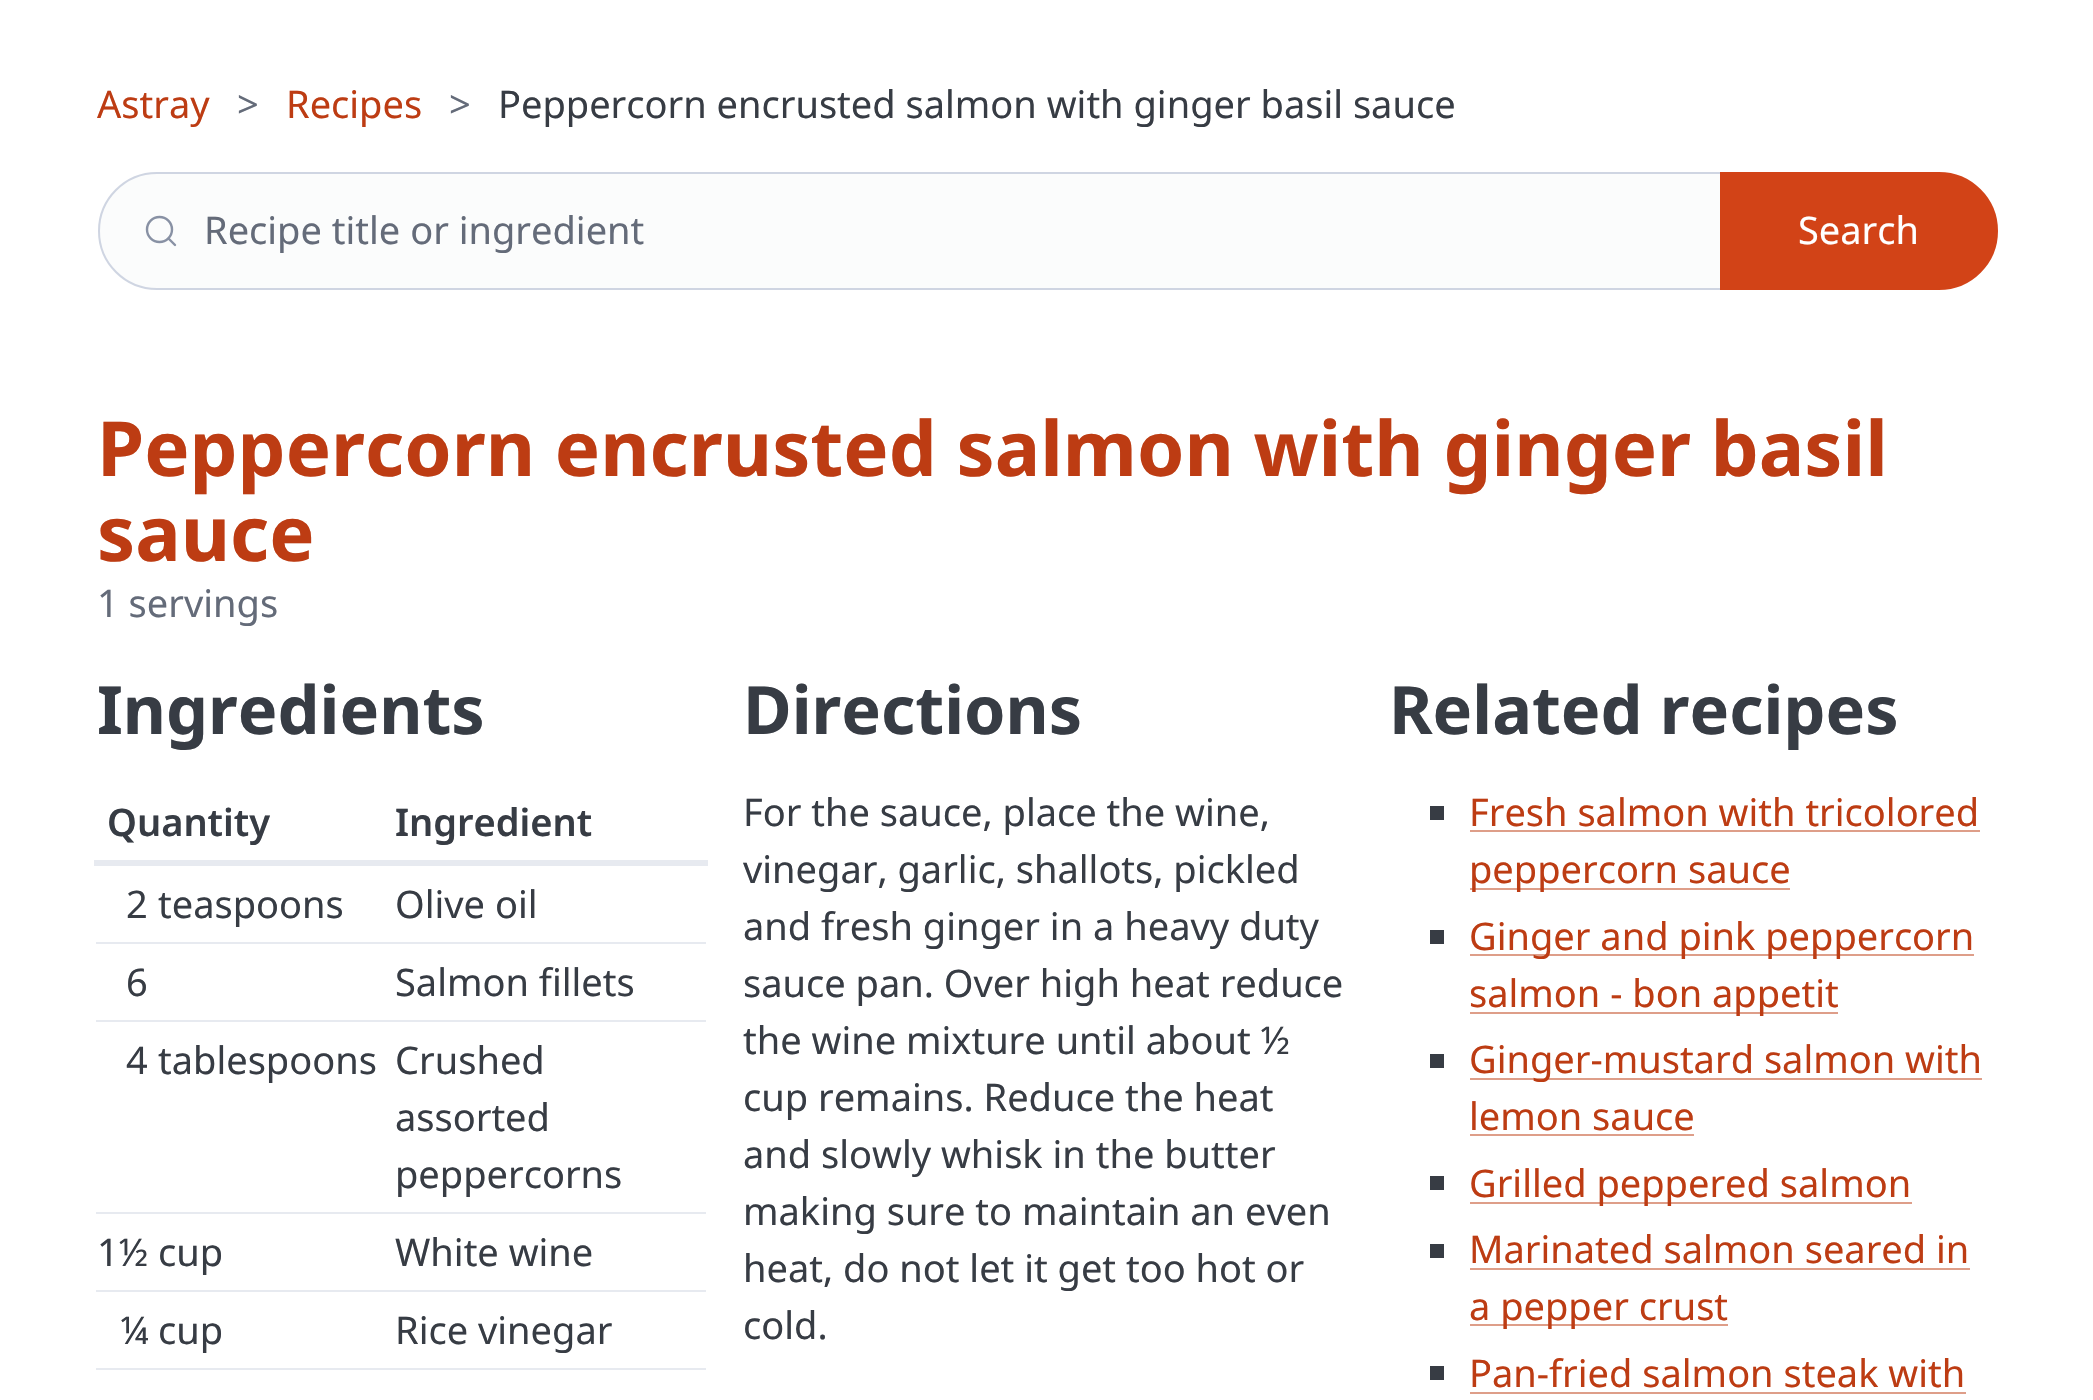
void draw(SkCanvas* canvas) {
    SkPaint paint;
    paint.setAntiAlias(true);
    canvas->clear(0xFFFFFFFF);
    SkFont font1(fontMgr->matchFamilyStyle("Noto Sans", SkFontStyle::Normal()), 38);
    font1.setSubpixel(true);
    paint.setColor(0xFFBD3C13);
    canvas->drawString("Astray", 97, 118, font1, paint);
    paint.setColor(0xFF646B79);
    canvas->drawString(">", 237, 118, font1, paint);
    paint.setColor(0xFFBD3C13);
    canvas->drawString("Recipes", 286, 118, font1, paint);
    paint.setColor(0xFF646B79);
    canvas->drawString(">", 449, 118, font1, paint);
    paint.setColor(0xFF373C44);
    canvas->drawString("Peppercorn encrusted salmon with ginger basil sauce", 498, 118, font1, paint);
    paint.setColor(0xFFFBFCFC);
    canvas->drawPath(SkPathBuilder().moveTo(157, 172).lineTo(1722, 172).lineTo(1722, 290).lineTo(157, 290).cubicTo(124.5f, 290, 98, 263.5f, 98, 231).cubicTo(98, 198.5f, 124.5f, 172, 157, 172).close().detach(), paint);
    paint.setStyle(SkPaint::kStroke_Style);
    paint.setStrokeWidth(2.4f);
    paint.setColor(0xFF8891A4);
    canvas->drawCircle(159.5f, 229.5f, 12.5f, paint);
    paint.setStrokeCap(SkPaint::kRound_Cap);
    paint.setStrokeJoin(SkPaint::kRound_Join);
    canvas->drawPath(SkPathBuilder().moveTo(175, 245).lineTo(168.5f, 238.5f).detach(), paint);
    paint.setStrokeWidth(2);
    paint.setStrokeCap(SkPaint::kButt_Cap);
    paint.setStrokeJoin(SkPaint::kMiter_Join);
    paint.setColor(0xFFCFD5E2);
    canvas->drawPath(SkPathBuilder().moveTo(157, 173).lineTo(1721, 173).lineTo(1721, 289).lineTo(157, 289).cubicTo(125, 289, 99, 263, 99, 231).cubicTo(99, 199, 125, 173, 157, 173).close().detach(), paint);
    paint.setStyle(SkPaint::kFill_Style);
    paint.setColor(0xFF646B79);
    canvas->drawString("Recipe title or ingredient", 204, 244, font1, paint);
    paint.setColor(0xFFD24317);
    canvas->drawPath(SkPathBuilder().moveTo(1721, 173).lineTo(1939, 173).cubicTo(1971, 173, 1997, 199, 1997, 231).cubicTo(1997, 263, 1971, 289, 1939, 289).lineTo(1721, 289).close().detach(), paint);
    paint.setStyle(SkPaint::kStroke_Style);
    canvas->drawPath(SkPathBuilder().moveTo(1721, 173).lineTo(1939, 173).cubicTo(1971, 173, 1997, 199, 1997, 231).cubicTo(1997, 263, 1971, 289, 1939, 289).lineTo(1721, 289).close().detach(), paint);
    paint.setStyle(SkPaint::kFill_Style);
    paint.setColor(0xFFFFFFFF);
    canvas->drawString("Search", 1798, 244, font1, paint);
    SkFont font2(fontMgr->matchFamilyStyle("Noto Sans", SkFontStyle::Bold()), 76);
    font2.setSubpixel(true);
    paint.setColor(0xFFBD3C13);
    canvas->drawString("Peppercorn encrusted salmon with ginger basil", 97, 476, font2, paint);
    canvas->drawString("sauce", 97, 561, font2, paint);
    paint.setColor(0xFF646B79);
    canvas->drawString("1 servings", 97, 617, font1, paint);
    SkFont font3(fontMgr->matchFamilyStyle("Noto Sans", SkFontStyle::Bold()), 66.5f);
    font3.setSubpixel(true);
    paint.setColor(0xFF373C44);
    canvas->drawString("Ingredients", 97, 734, font3, paint);
    SkFont font4(fontMgr->matchFamilyStyle("Noto Sans", SkFontStyle(600, SkFontStyle::kNormal_Width, SkFontStyle::kUpright_Slant)), 38);
    font4.setSubpixel(true);
    canvas->drawString("Quantity", 107, 836, font4, paint);
    paint.setColor(0xFFE7EAF0);
    canvas->drawRect(SkRect::MakeXYWH(94, 860, 614, 6), paint);
    paint.setColor(0xFF373C44);
    canvas->drawString("Ingredient", 395, 836, font4, paint);
    canvas->drawString("2", 126, 918, font1, paint);
    canvas->drawString("teaspoons", 158, 918, font1, paint);
    paint.setColor(0xFFE7EAF0);
    canvas->drawRect(SkRect::MakeXYWH(96, 942, 610, 2), paint);
    paint.setColor(0xFF373C44);
    canvas->drawString("Olive oil", 395, 918, font1, paint);
    canvas->drawString("6", 126, 996, font1, paint);
    paint.setColor(0xFFE7EAF0);
    canvas->drawRect(SkRect::MakeXYWH(96, 1020, 610, 2), paint);
    paint.setColor(0xFF373C44);
    canvas->drawString("Salmon fillets", 395, 996, font1, paint);
    canvas->drawString("4", 126, 1074, font1, paint);
    canvas->drawString("tablespoons", 158, 1074, font1, paint);
    paint.setColor(0xFFE7EAF0);
    canvas->drawRect(SkRect::MakeXYWH(96, 1212, 610, 2), paint);
    paint.setColor(0xFF373C44);
    canvas->drawString("Crushed", 395, 1074, font1, paint);
    canvas->drawString("assorted", 395, 1131, font1, paint);
    canvas->drawString("peppercorns", 395, 1188, font1, paint);
    canvas->drawString("1½", 97, 1266, font1, paint);
    canvas->drawString("cup", 158, 1266, font1, paint);
    paint.setColor(0xFFE7EAF0);
    canvas->drawRect(SkRect::MakeXYWH(96, 1290, 610, 2), paint);
    paint.setColor(0xFF373C44);
    canvas->drawString("White wine", 395, 1266, font1, paint);
    canvas->drawString("¼", 120, 1344, font1, paint);
    canvas->drawString("cup", 158, 1344, font1, paint);
    paint.setColor(0xFFE7EAF0);
    canvas->drawRect(SkRect::MakeXYWH(96, 1368, 610, 2), paint);
    paint.setColor(0xFF373C44);
    canvas->drawString("Rice vinegar", 395, 1344, font1, paint);
    canvas->drawString("Directions", 743, 734, font3, paint);
    canvas->drawString("For the sauce, place the wine,", 743, 826, font1, paint);
    canvas->drawString("vinegar, garlic, shallots, pickled", 743, 883, font1, paint);
    canvas->drawString("and fresh ginger in a heavy duty", 743, 940, font1, paint);
    canvas->drawString("sauce pan. Over high heat reduce", 743, 997, font1, paint);
    canvas->drawString("the wine mixture until about ½", 743, 1054, font1, paint);
    canvas->drawString("cup remains. Reduce the heat", 743, 1111, font1, paint);
    canvas->drawString("and slowly whisk in the butter", 743, 1168, font1, paint);
    canvas->drawString("making sure to maintain an even", 743, 1225, font1, paint);
    canvas->drawString("heat, do not let it get too hot or", 743, 1282, font1, paint);
    canvas->drawString("cold.", 743, 1339, font1, paint);
    canvas->drawString("Related recipes", 1389, 734, font3, paint);
    canvas->drawRect(SkRect::MakeXYWH(1430, 806, 14, 14), paint);
    paint.setColor(0xFFBD3C13);
    canvas->drawString("Fresh salmon with tricolored", 1469, 826, font1, paint);
    paint.setColor(0xFFDE9E89);
    canvas->drawRect(SkRect::MakeXYWH(1470, 830, 510, 2), paint);
    canvas->drawRect(SkRect::MakeXYWH(1470, 888, 320, 2), paint);
    paint.setColor(0xFFBD3C13);
    canvas->drawString("peppercorn sauce", 1469, 883, font1, paint);
    paint.setColor(0xFF373C44);
    canvas->drawRect(SkRect::MakeXYWH(1430, 930, 14, 14), paint);
    paint.setColor(0xFFDE9E89);
    canvas->drawRect(SkRect::MakeXYWH(1470, 954, 504, 2), paint);
    paint.setColor(0xFFBD3C13);
    canvas->drawString("Ginger and pink peppercorn", 1469, 950, font1, paint);
    paint.setColor(0xFFDE9E89);
    canvas->drawRect(SkRect::MakeXYWH(1470, 1012, 368, 2), paint);
    paint.setColor(0xFFBD3C13);
    canvas->drawString("salmon - bon appetit", 1469, 1007, font1, paint);
    paint.setColor(0xFF373C44);
    canvas->drawRect(SkRect::MakeXYWH(1430, 1054, 14, 14), paint);
    paint.setColor(0xFFDE9E89);
    canvas->drawRect(SkRect::MakeXYWH(1470, 1078, 512, 2), paint);
    paint.setColor(0xFFBD3C13);
    canvas->drawString("Ginger-mustard salmon with", 1469, 1073, font1, paint);
    canvas->drawString("lemon sauce", 1469, 1130, font1, paint);
    paint.setColor(0xFFDE9E89);
    canvas->drawRect(SkRect::MakeXYWH(1470, 1134, 224, 2), paint);
    paint.setColor(0xFF373C44);
    canvas->drawRect(SkRect::MakeXYWH(1430, 1176, 14, 14), paint);
    paint.setColor(0xFFDE9E89);
    canvas->drawRect(SkRect::MakeXYWH(1470, 1202, 442, 2), paint);
    paint.setColor(0xFFBD3C13);
    canvas->drawString("Grilled peppered salmon", 1469, 1197, font1, paint);
    paint.setColor(0xFF373C44);
    canvas->drawRect(SkRect::MakeXYWH(1430, 1244, 14, 14), paint);
    paint.setColor(0xFFBD3C13);
    canvas->drawString("Marinated salmon seared in", 1469, 1263, font1, paint);
    paint.setColor(0xFFDE9E89);
    canvas->drawRect(SkRect::MakeXYWH(1470, 1268, 500, 2), paint);
    canvas->drawRect(SkRect::MakeXYWH(1470, 1324, 258, 2), paint);
    paint.setColor(0xFFBD3C13);
    canvas->drawString("a pepper crust", 1469, 1320, font1, paint);
    paint.setColor(0xFF373C44);
    canvas->drawRect(SkRect::MakeXYWH(1430, 1366, 14, 14), paint);
    paint.setColor(0xFFBD3C13);
    canvas->drawString("Pan-fried salmon steak with", 1469, 1387, font1, paint);
    paint.setColor(0xFFDE9E89);
    canvas->drawRect(SkRect::MakeXYWH(1470, 1392, 496, 2), paint);
}
